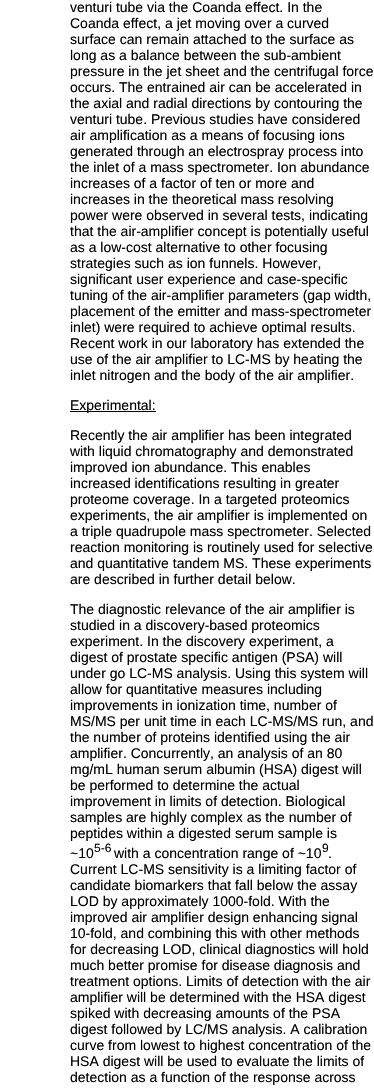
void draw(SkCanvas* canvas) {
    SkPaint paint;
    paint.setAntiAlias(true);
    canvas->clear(0xFFFFFFFF);
    SkFont font1(fontMgr->matchFamilyStyle("Liberation Sans", SkFontStyle::Normal()), 14);
    font1.setSubpixel(true);
    paint.setColor(0xFF000000);
    canvas->drawString("venturi tube via the Coanda effect. In the", 70, 12, font1, paint);
    canvas->drawString("Coanda effect, a jet moving over a curved", 70, 28, font1, paint);
    canvas->drawString("surface can remain attached to the surface as", 70, 44, font1, paint);
    canvas->drawString("long as a balance between the sub-ambient", 70, 60, font1, paint);
    canvas->drawString("pressure in the jet sheet and the centrifugal force", 70, 76, font1, paint);
    canvas->drawString("occurs. The entrained air can be accelerated in", 70, 92, font1, paint);
    canvas->drawString("the axial and radial directions by contouring the", 70, 108, font1, paint);
    canvas->drawString("venturi tube. Previous studies have considered", 70, 124, font1, paint);
    canvas->drawString("air amplification as a means of focusing ions", 70, 140, font1, paint);
    canvas->drawString("generated through an electrospray process into", 70, 156, font1, paint);
    canvas->drawString("the inlet of a mass spectrometer. Ion abundance", 70, 172, font1, paint);
    canvas->drawString("increases of a factor of ten or more and", 70, 188, font1, paint);
    canvas->drawString("increases in the theoretical mass resolving", 70, 204, font1, paint);
    canvas->drawString("power were observed in several tests, indicating", 70, 220, font1, paint);
    canvas->drawString("that the air-amplifier concept is potentially useful", 70, 236, font1, paint);
    canvas->drawString("as a low-cost alternative to other focusing", 70, 252, font1, paint);
    canvas->drawString("strategies such as ion funnels. However,", 70, 268, font1, paint);
    canvas->drawString("significant user experience and case-specific", 70, 284, font1, paint);
    canvas->drawString("tuning of the air-amplifier parameters (gap width,", 70, 300, font1, paint);
    canvas->drawString("placement of the emitter and mass-spectrometer", 70, 316, font1, paint);
    canvas->drawString("inlet) were required to achieve optimal results.", 70, 332, font1, paint);
    canvas->drawString("Recent work in our laboratory has extended the", 70, 348, font1, paint);
    canvas->drawString("use of the air amplifier to LC-MS by heating the", 70, 364, font1, paint);
    canvas->drawString("inlet nitrogen and the body of the air amplifier.", 70, 380, font1, paint);
    canvas->drawRect(SkRect::MakeXYWH(70, 411, 86, 1), paint);
    canvas->drawString("Experimental:", 70, 410, font1, paint);
    canvas->drawString("Recently the air amplifier has been integrated", 70, 440, font1, paint);
    canvas->drawString("with liquid chromatography and demonstrated", 70, 456, font1, paint);
    canvas->drawString("improved ion abundance. This enables", 70, 472, font1, paint);
    canvas->drawString("increased identifications resulting in greater", 70, 488, font1, paint);
    canvas->drawString("proteome coverage. In a targeted proteomics", 70, 504, font1, paint);
    canvas->drawString("experiments, the air amplifier is implemented on", 70, 520, font1, paint);
    canvas->drawString("a triple quadrupole mass spectrometer. Selected", 70, 536, font1, paint);
    canvas->drawString("reaction monitoring is routinely used for selective", 70, 552, font1, paint);
    canvas->drawString("and quantitative tandem MS. These experiments", 70, 568, font1, paint);
    canvas->drawString("are described in further detail below.", 70, 584, font1, paint);
    canvas->drawString("The diagnostic relevance of the air amplifier is", 70, 614, font1, paint);
    canvas->drawString("studied in a discovery-based proteomics", 70, 630, font1, paint);
    canvas->drawString("experiment. In the discovery experiment, a", 70, 646, font1, paint);
    canvas->drawString("digest of prostate specific antigen (PSA) will", 70, 662, font1, paint);
    canvas->drawString("under go LC-MS analysis. Using this system will", 70, 678, font1, paint);
    canvas->drawString("allow for quantitative measures including", 70, 694, font1, paint);
    canvas->drawString("improvements in ionization time, number of", 70, 710, font1, paint);
    canvas->drawString("MS/MS per unit time in each LC-MS/MS run, and", 70, 726, font1, paint);
    canvas->drawString("the number of proteins identified using the air", 70, 742, font1, paint);
    canvas->drawString("amplifier. Concurrently, an analysis of an 80", 70, 758, font1, paint);
    canvas->drawString("mg/mL human serum albumin (HSA) digest will", 70, 774, font1, paint);
    canvas->drawString("be performed to determine the actual", 70, 790, font1, paint);
    canvas->drawString("improvement in limits of detection. Biological", 70, 806, font1, paint);
    canvas->drawString("samples are highly complex as the number of", 70, 822, font1, paint);
    canvas->drawString("peptides within a digested serum sample is", 70, 838, font1, paint);
    canvas->drawString("~10", 70, 858, font1, paint);
    SkFont font2(fontMgr->matchFamilyStyle("Liberation Sans", SkFontStyle::Normal()), 12);
    font2.setSubpixel(true);
    canvas->drawString("5-6", 94, 852, font2, paint);
    canvas->drawString("with a concentration range of ~10", 114, 858, font1, paint);
    canvas->drawString("9", 322, 852, font2, paint);
    canvas->drawString(".", 328, 858, font1, paint);
    canvas->drawString("Current LC-MS sensitivity is a limiting factor of", 70, 874, font1, paint);
    canvas->drawString("candidate biomarkers that fall below the assay", 70, 890, font1, paint);
    canvas->drawString("LOD by approximately 1000-fold. With the", 70, 906, font1, paint);
    canvas->drawString("improved air amplifier design enhancing signal", 70, 922, font1, paint);
    canvas->drawString("10-fold, and combining this with other methods", 70, 938, font1, paint);
    canvas->drawString("for decreasing LOD, clinical diagnostics will hold", 70, 954, font1, paint);
    canvas->drawString("much better promise for disease diagnosis and", 70, 970, font1, paint);
    canvas->drawString("treatment options. Limits of detection with the air", 70, 986, font1, paint);
    canvas->drawString("amplifier will be determined with the HSA digest", 70, 1002, font1, paint);
    canvas->drawString("spiked with decreasing amounts of the PSA", 70, 1018, font1, paint);
    canvas->drawString("digest followed by LC/MS analysis. A calibration", 70, 1034, font1, paint);
    canvas->drawString("curve from lowest to highest concentration of the", 70, 1050, font1, paint);
    canvas->drawString("HSA digest will be used to evaluate the limits of", 70, 1066, font1, paint);
    canvas->drawString("detection as a function of the response across", 70, 1082, font1, paint);
}
